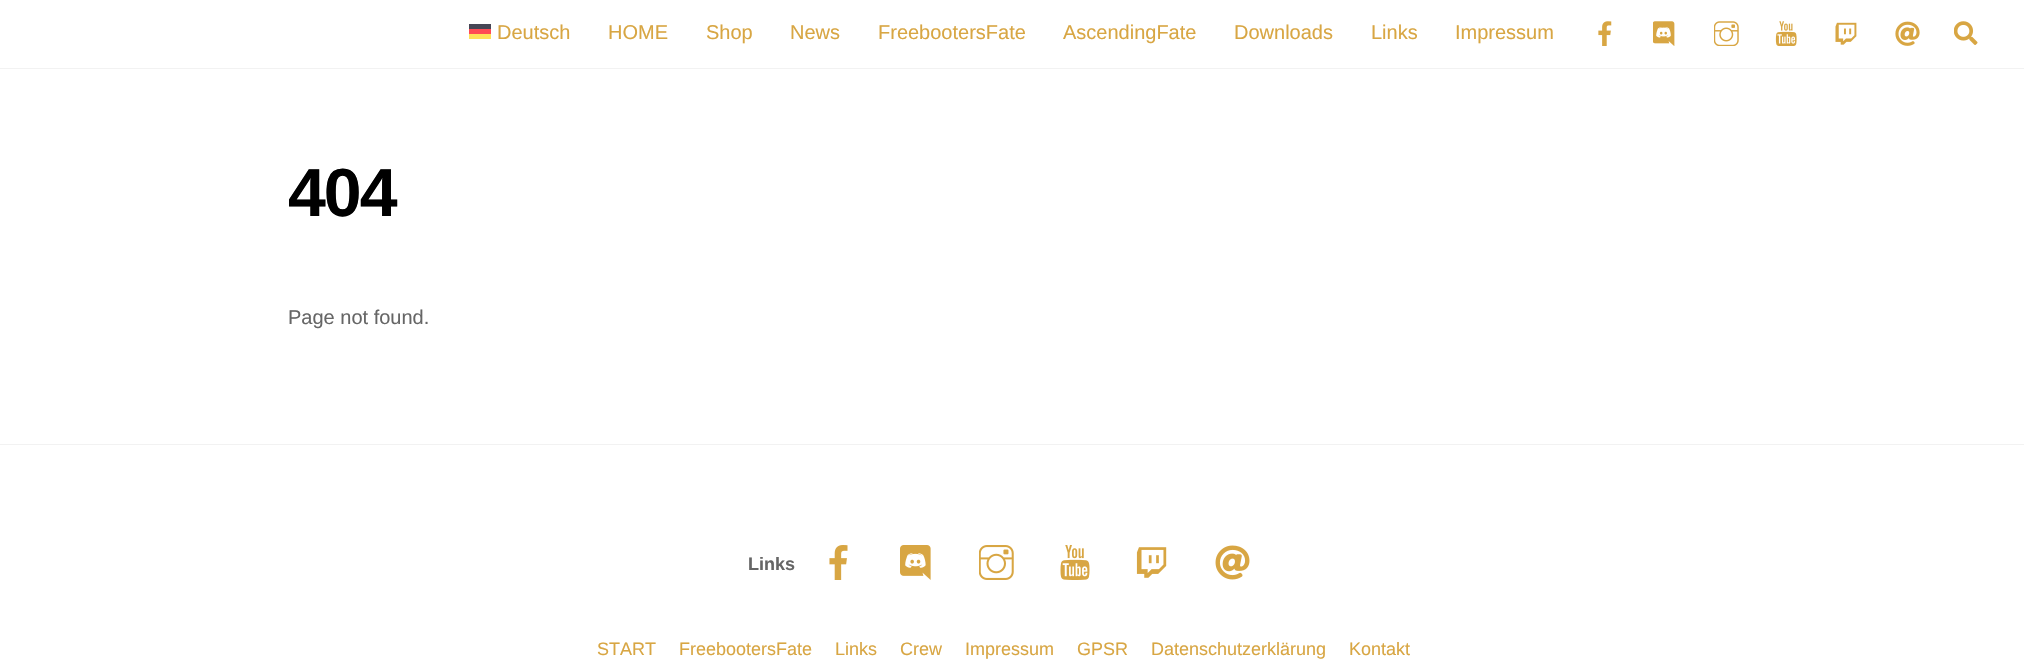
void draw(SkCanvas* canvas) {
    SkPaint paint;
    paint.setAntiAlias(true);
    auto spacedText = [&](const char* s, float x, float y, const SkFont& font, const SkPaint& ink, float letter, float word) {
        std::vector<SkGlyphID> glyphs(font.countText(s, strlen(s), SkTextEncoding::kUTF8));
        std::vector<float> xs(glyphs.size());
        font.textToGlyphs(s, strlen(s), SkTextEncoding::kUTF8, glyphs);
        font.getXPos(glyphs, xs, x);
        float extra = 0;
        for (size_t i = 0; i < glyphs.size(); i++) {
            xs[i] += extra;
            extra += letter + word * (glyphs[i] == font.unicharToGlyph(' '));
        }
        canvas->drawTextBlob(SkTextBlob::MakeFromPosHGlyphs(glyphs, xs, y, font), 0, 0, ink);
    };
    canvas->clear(0xFFFFFFFF);
    paint.setColor(0xFFF2F2F2);
    canvas->drawRect(SkRect::MakeXYWH(0, 68, 2024, 1), paint);
    paint.setColor(0xFF464655);
    canvas->drawRect(SkRect::MakeXYWH(469, 24, 22, 5), paint);
    SkFont font1(fontMgr->matchFamilyStyle("Liberation Sans", SkFontStyle::Normal()), 20);
    font1.setSubpixel(true);
    paint.setColor(0xFFD8A643);
    canvas->drawString("Deutsch", 497, 39, font1, paint);
    paint.setColor(0xFFFF4B55);
    canvas->drawRect(SkRect::MakeXYWH(469, 29, 22, 5), paint);
    paint.setColor(0xFFFFE15A);
    canvas->drawRect(SkRect::MakeXYWH(469, 34, 22, 5), paint);
    paint.setColor(0xFFD8A643);
    canvas->drawString("HOME", 608, 39, font1, paint);
    canvas->drawString("Shop", 706, 39, font1, paint);
    canvas->drawString("News", 790, 39, font1, paint);
    canvas->drawString("FreebootersFate", 878, 39, font1, paint);
    canvas->drawString("AscendingFate", 1063, 39, font1, paint);
    canvas->drawString("Downloads", 1234, 39, font1, paint);
    canvas->drawString("Links", 1371, 39, font1, paint);
    canvas->drawString("Impressum", 1455, 39, font1, paint);
    canvas->drawImageRect(SkImages::DeferredFromEncodedData(SkData::MakeFromFileName("img1.png")), SkRect::MakeXYWH(1598, 21, 14, 25), SkSamplingOptions());
    canvas->drawImageRect(SkImages::DeferredFromEncodedData(SkData::MakeFromFileName("img2.png")), SkRect::MakeXYWH(1653, 21, 22, 25), SkSamplingOptions());
    canvas->drawImageRect(SkImages::DeferredFromEncodedData(SkData::MakeFromFileName("img3.png")), SkRect::MakeXYWH(1714, 21, 25, 25), SkSamplingOptions());
    canvas->drawImageRect(SkImages::DeferredFromEncodedData(SkData::MakeFromFileName("img4.png")), SkRect::MakeXYWH(1775, 21, 22, 25), SkSamplingOptions());
    canvas->drawImageRect(SkImages::DeferredFromEncodedData(SkData::MakeFromFileName("img5.png")), SkRect::MakeXYWH(1835, 22, 22, 23), SkSamplingOptions());
    canvas->drawImageRect(SkImages::DeferredFromEncodedData(SkData::MakeFromFileName("img6.png")), SkRect::MakeXYWH(1895, 21, 25, 25), SkSamplingOptions());
    canvas->drawImageRect(SkImages::DeferredFromEncodedData(SkData::MakeFromFileName("img7.png")), SkRect::MakeXYWH(1954, 21, 24, 24), SkSamplingOptions());
    SkFont font2(fontMgr->matchFamilyStyle("Liberation Sans", SkFontStyle::Bold()), 68);
    font2.setSubpixel(true);
    paint.setColor(0xFF000000);
    spacedText("404", 288, 216, font2, paint, -2, 0);
    paint.setColor(0xFF666666);
    canvas->drawString("Page not found.", 288, 324, font1, paint);
    paint.setColor(0xFFF2F2F2);
    canvas->drawRect(SkRect::MakeXYWH(0, 444, 2024, 1), paint);
    SkFont font3(fontMgr->matchFamilyStyle("Liberation Sans", SkFontStyle::Bold()), 18);
    font3.setSubpixel(true);
    paint.setColor(0xFF666666);
    canvas->drawString("Links", 748, 570, font3, paint);
    canvas->drawImageRect(SkImages::DeferredFromEncodedData(SkData::MakeFromFileName("img8.png")), SkRect::MakeXYWH(829, 545, 19, 35), SkSamplingOptions());
    canvas->drawImageRect(SkImages::DeferredFromEncodedData(SkData::MakeFromFileName("img9.png")), SkRect::MakeXYWH(900, 545, 31, 35), SkSamplingOptions());
    canvas->drawImageRect(SkImages::DeferredFromEncodedData(SkData::MakeFromFileName("img10.png")), SkRect::MakeXYWH(979, 545, 35, 35), SkSamplingOptions());
    canvas->drawImageRect(SkImages::DeferredFromEncodedData(SkData::MakeFromFileName("img11.png")), SkRect::MakeXYWH(1060, 545, 30, 35), SkSamplingOptions());
    canvas->drawImageRect(SkImages::DeferredFromEncodedData(SkData::MakeFromFileName("img12.png")), SkRect::MakeXYWH(1136, 547, 31, 31), SkSamplingOptions());
    canvas->drawImageRect(SkImages::DeferredFromEncodedData(SkData::MakeFromFileName("img13.png")), SkRect::MakeXYWH(1215, 545, 35, 35), SkSamplingOptions());
    SkFont font4(fontMgr->matchFamilyStyle("Liberation Sans", SkFontStyle::Normal()), 18);
    font4.setSubpixel(true);
    paint.setColor(0xFFD8A643);
    canvas->drawString("START", 597, 655, font4, paint);
    canvas->drawString("FreebootersFate", 679, 655, font4, paint);
    canvas->drawString("Links", 835, 655, font4, paint);
    canvas->drawString("Crew", 900, 655, font4, paint);
    canvas->drawString("Impressum", 965, 655, font4, paint);
    canvas->drawString("GPSR", 1077, 655, font4, paint);
    canvas->drawString("Datenschutzerklärung", 1151, 655, font4, paint);
    canvas->drawString("Kontakt", 1349, 655, font4, paint);
}
